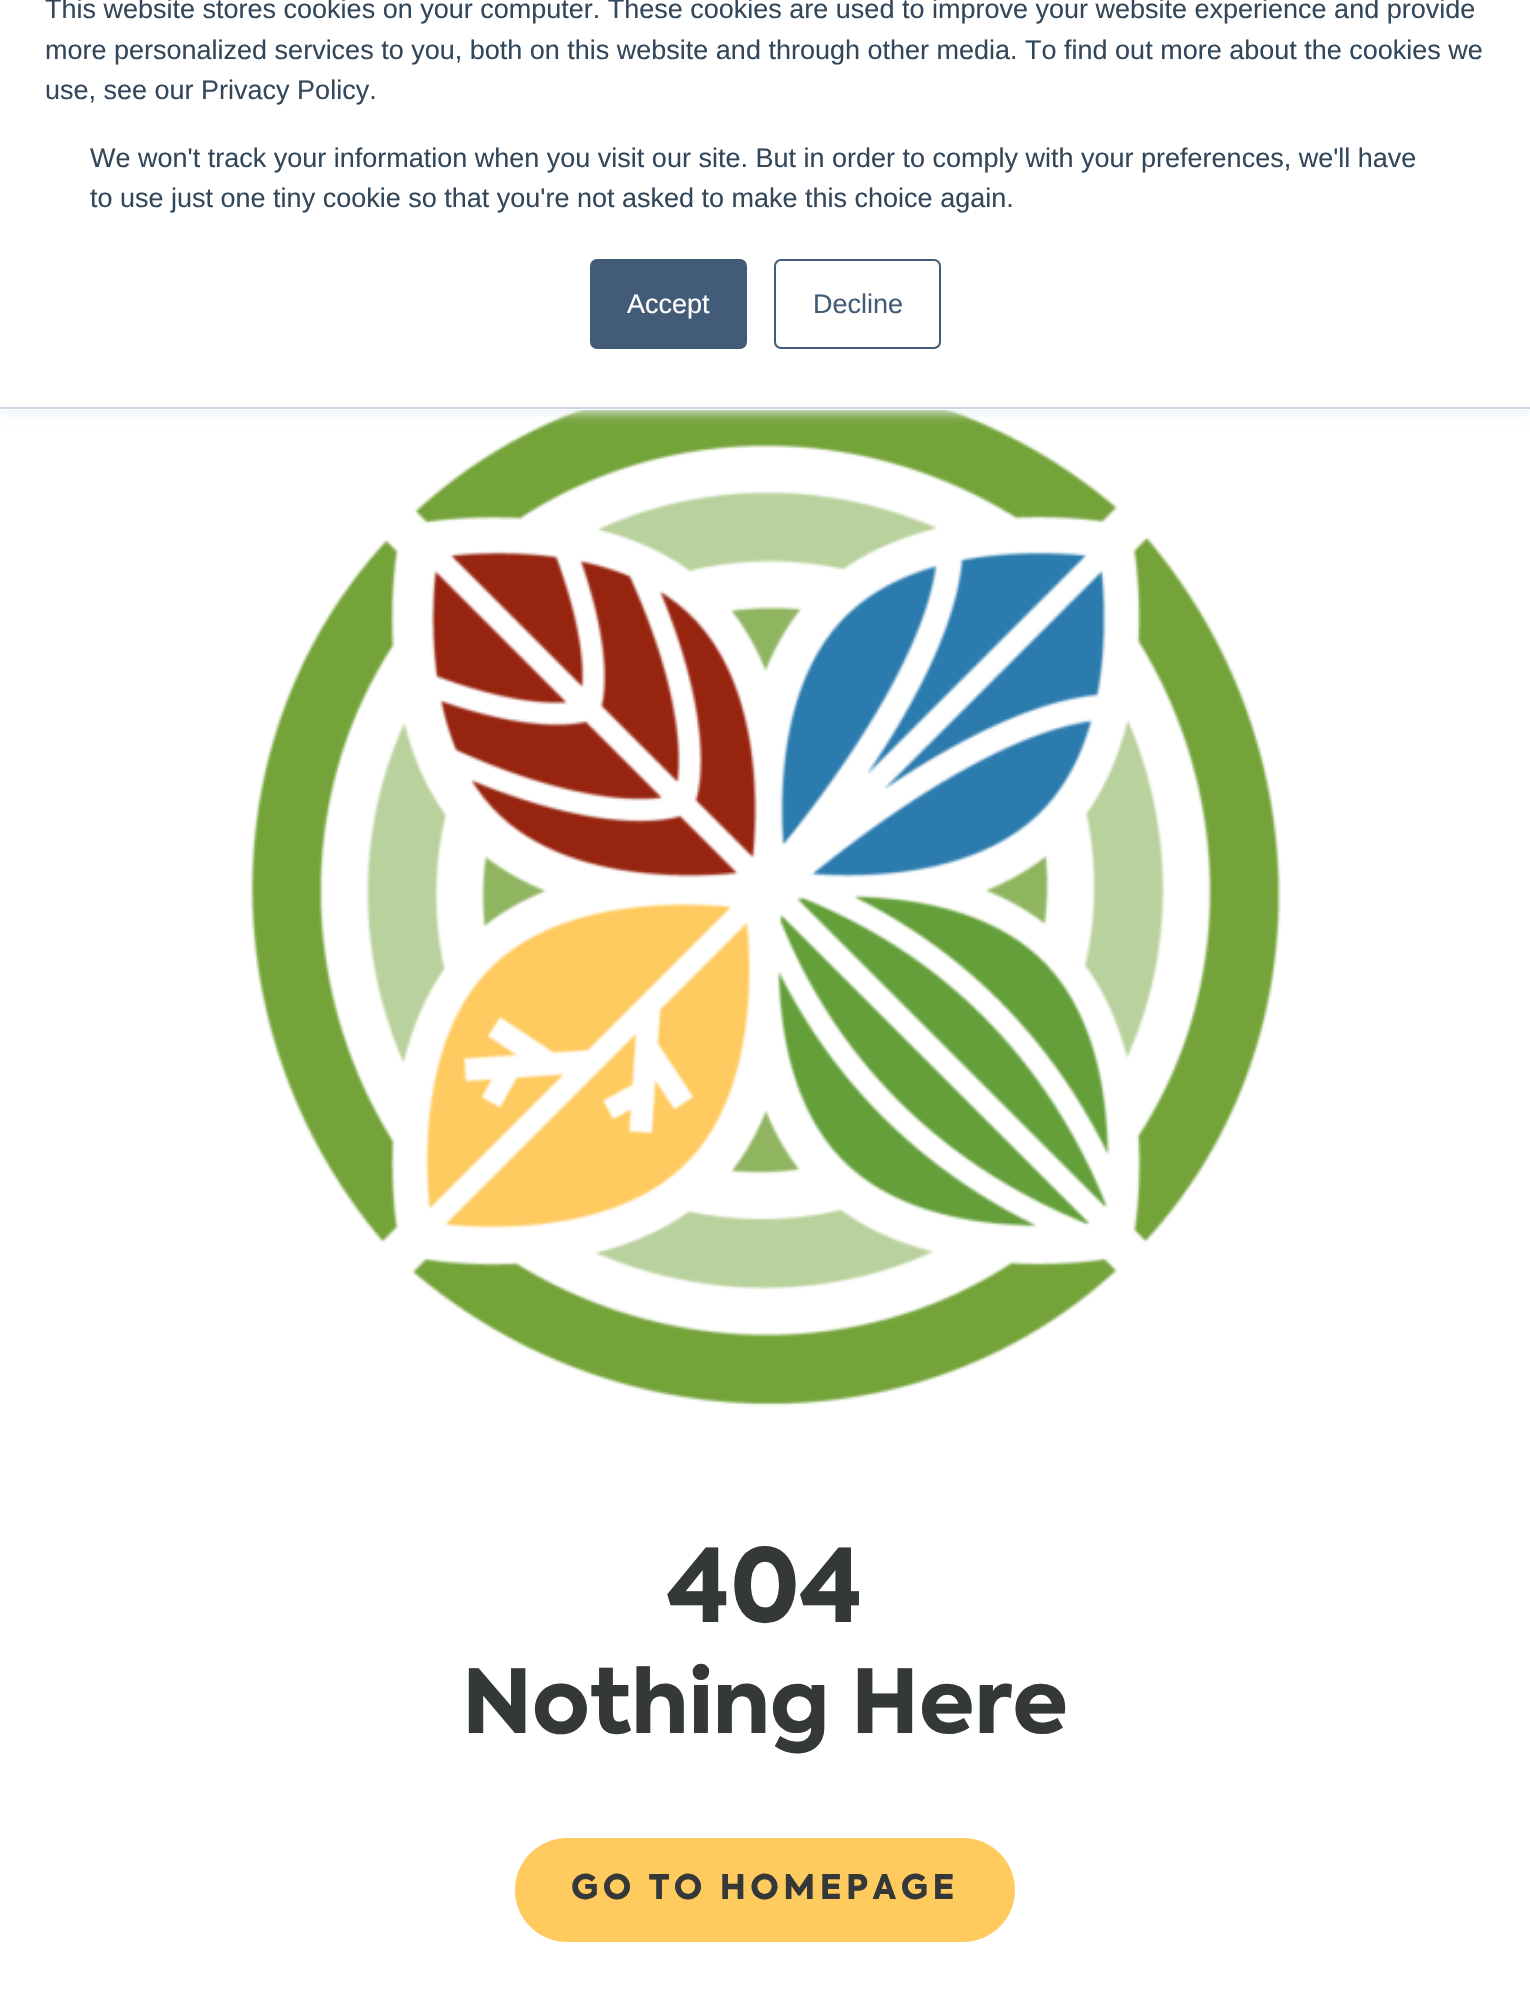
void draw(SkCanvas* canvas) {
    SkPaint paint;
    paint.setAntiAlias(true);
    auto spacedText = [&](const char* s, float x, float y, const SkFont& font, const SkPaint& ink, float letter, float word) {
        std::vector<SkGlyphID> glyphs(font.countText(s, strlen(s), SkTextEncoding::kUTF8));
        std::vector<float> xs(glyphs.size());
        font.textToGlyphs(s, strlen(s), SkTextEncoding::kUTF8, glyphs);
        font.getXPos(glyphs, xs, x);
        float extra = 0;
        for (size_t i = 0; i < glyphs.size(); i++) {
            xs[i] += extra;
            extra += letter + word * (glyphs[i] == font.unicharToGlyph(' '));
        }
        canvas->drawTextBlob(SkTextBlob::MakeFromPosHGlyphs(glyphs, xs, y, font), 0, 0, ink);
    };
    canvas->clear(0xFFFFFFFF);
    canvas->drawImageRect(SkImages::DeferredFromEncodedData(SkData::MakeFromFileName("img1.png")), SkRect::MakeXYWH(249, 410, 1032, 997), SkSamplingOptions());
    paint.setColor(0xFFEAF0F6);
    paint.setMaskFilter(SkMaskFilter::MakeBlur(kNormal_SkBlurStyle, 5.5f));
    canvas->drawRect(SkRect::MakeXYWH(0, -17, 1530, 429), paint);
    paint.setMaskFilter(nullptr);
    paint.setColor(0xFFFFFFFF);
    canvas->drawRect(SkRect::MakeXYWH(0, 0, 1530, 410), paint);
    paint.setColor(0xFFCBD6E2);
    canvas->drawRect(SkRect::MakeXYWH(0, 407, 1530, 2), paint);
    SkFont font1(fontMgr->matchFamilyStyle("Liberation Sans", SkFontStyle::Normal()), 27);
    font1.setSubpixel(true);
    paint.setColor(0xFF33475B);
    canvas->drawString("This website stores cookies on your computer. These cookies are used to improve your website experience and provide", 45, 18, font1, paint);
    canvas->drawString("more personalized services to you, both on this website and through other media. To find out more about the cookies we", 45, 59, font1, paint);
    canvas->drawString("use, see our Privacy Policy.", 45, 99, font1, paint);
    canvas->drawString("We won't track your information when you visit our site. But in order to comply with your preferences, we'll have", 90, 167, font1, paint);
    canvas->drawString("to use just one tiny cookie so that you're not asked to make this choice again.", 90, 207, font1, paint);
    paint.setColor(0xFF425B76);
    canvas->drawRoundRect(SkRect::MakeXYWH(591, 260, 155, 88), 6, 6, paint);
    paint.setStyle(SkPaint::kStroke_Style);
    paint.setStrokeWidth(2);
    canvas->drawRoundRect(SkRect::MakeXYWH(591, 260, 155, 88), 6, 6, paint);
    paint.setStyle(SkPaint::kFill_Style);
    paint.setColor(0xFFFFFFFF);
    canvas->drawString("Accept", 627, 313, font1, paint);
    paint.setStyle(SkPaint::kStroke_Style);
    paint.setColor(0xFF425B76);
    canvas->drawRoundRect(SkRect::MakeXYWH(775, 260, 165, 88), 6, 6, paint);
    paint.setStyle(SkPaint::kFill_Style);
    canvas->drawString("Decline", 813, 313, font1, paint);
    SkFont font2(fontMgr->matchFamilyStyle("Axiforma", SkFontStyle(800, SkFontStyle::kNormal_Width, SkFontStyle::kUpright_Slant)), 101);
    font2.setSubpixel(true);
    paint.setColor(0xFF353839);
    canvas->drawString("404", 667, 1622, font2, paint);
    SkFont font3(fontMgr->matchFamilyStyle("Axiforma", SkFontStyle(800, SkFontStyle::kNormal_Width, SkFontStyle::kUpright_Slant)), 87.75f);
    font3.setSubpixel(true);
    canvas->drawString("Nothing Here", 462, 1733, font3, paint);
    paint.setColor(0xFFFFCB5F);
    canvas->drawRoundRect(SkRect::MakeXYWH(515, 1838, 500, 104), 52, 52, paint);
    SkFont font4(fontMgr->matchFamilyStyle("Axiforma", SkFontStyle(800, SkFontStyle::kNormal_Width, SkFontStyle::kUpright_Slant)), 33.75f);
    font4.setSubpixel(true);
    paint.setColor(0xFF353839);
    spacedText("GO TO HOMEPAGE", 571, 1899, font4, paint, 4.5f, 0);
}
